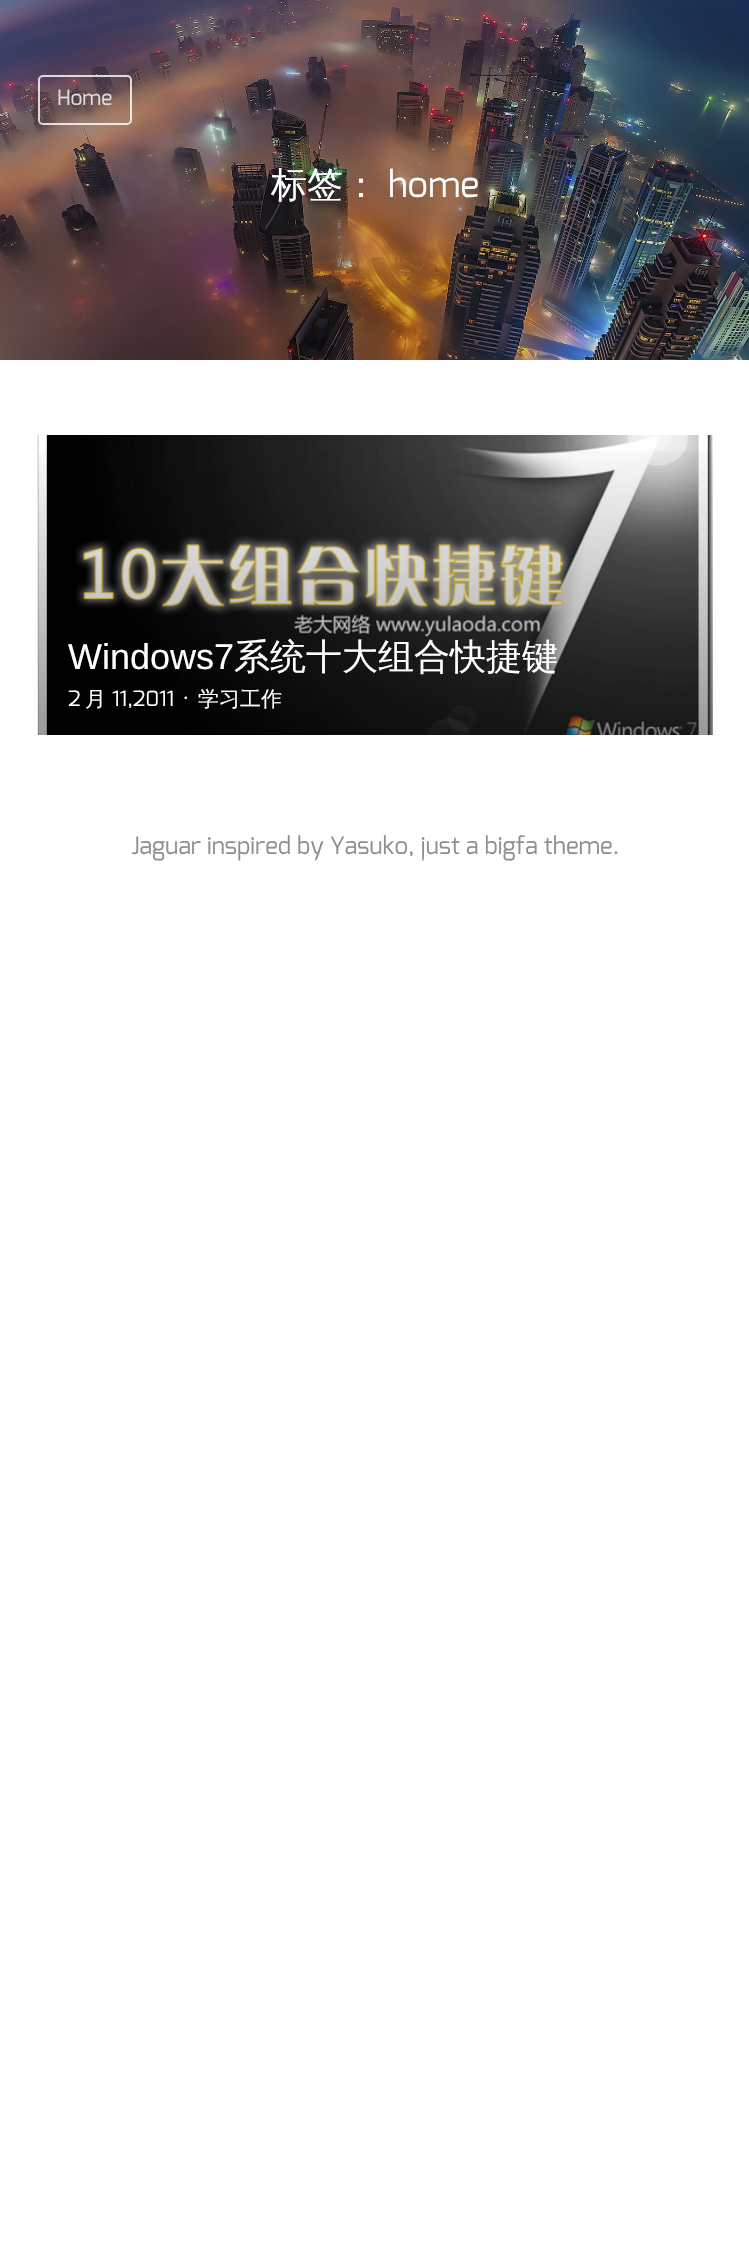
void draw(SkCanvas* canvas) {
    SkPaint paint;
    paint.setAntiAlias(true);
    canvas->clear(0xFFFFFFFF);
    canvas->drawImageRect(SkImages::DeferredFromEncodedData(SkData::MakeFromFileName("img1.png")), SkRect::MakeXYWH(0, 0, 749, 360), SkSamplingOptions());
    paint.setStyle(SkPaint::kStroke_Style);
    paint.setStrokeWidth(2);
    paint.setColor(0xCCFFFFFF);
    canvas->drawRoundRect(SkRect::MakeXYWH(39, 76, 92, 48), 4, 4, paint);
    SkFont font1(fontMgr->matchFamilyStyle("Exo", SkFontStyle::Normal()), 21);
    font1.setSubpixel(true);
    paint.setStyle(SkPaint::kFill_Style);
    paint.setColor(0xFFE1DCDD);
    canvas->drawString("Home", 57, 105, font1, paint);
    SkFont font2(fontMgr->matchFamilyStyle("WenQuanYi Zen Hei", SkFontStyle(500, SkFontStyle::kNormal_Width, SkFontStyle::kUpright_Slant)), 36);
    font2.setSubpixel(true);
    paint.setColor(0xFFFFFFFF);
    canvas->drawString("标签：", 271, 197, font2, paint);
    SkFont font3(fontMgr->matchFamilyStyle("Exo", SkFontStyle::Normal()), 36);
    font3.setSubpixel(true);
    canvas->drawString("home", 388, 197, font3, paint);
    canvas->drawImageRect(SkImages::DeferredFromEncodedData(SkData::MakeFromFileName("img2.png")), SkRect::MakeXYWH(37, 435, 676, 300), SkSamplingOptions());
    {
        const SkColor colors[] = {0x00000000, 0x66000000};
        const float stops[] = {0, 1};
        const SkPoint ends[] = {{375, 435}, {375, 735}};
        paint.setShader(SkGradientShader::MakeLinear(ends, colors, stops, 2, SkTileMode::kClamp));
        paint.setAlpha(255);
    }
    canvas->drawRect(SkRect::MakeXYWH(38, 451, 675, 284), paint);
    SkFont font4(fontMgr->matchFamilyStyle("Liberation Sans", SkFontStyle::Normal()), 36);
    font4.setSubpixel(true);
    paint.setShader(nullptr);
    paint.setColor(0xFFFFFFFF);
    canvas->drawString("Windows7", 68, 669, font4, paint);
    canvas->drawString("系统十大组合快捷键", 234, 669, font2, paint);
    canvas->drawString("2", 68, 706, font1, paint);
    SkFont font5(fontMgr->matchFamilyStyle("WenQuanYi Zen Hei", SkFontStyle(500, SkFontStyle::kNormal_Width, SkFontStyle::kUpright_Slant)), 21);
    font5.setSubpixel(true);
    canvas->drawString("月", 85, 706, font5, paint);
    canvas->drawString("11,2011", 112, 706, font1, paint);
    canvas->drawString("·", 183, 706, font1, paint);
    canvas->drawString("学习工作", 198, 706, font5, paint);
    SkFont font6(fontMgr->matchFamilyStyle("Exo", SkFontStyle::Normal()), 24);
    font6.setSubpixel(true);
    paint.setColor(0xFF8F8F8F);
    canvas->drawString("Jaguar inspired by Yasuko, just a bigfa theme.", 131, 854, font6, paint);
}
